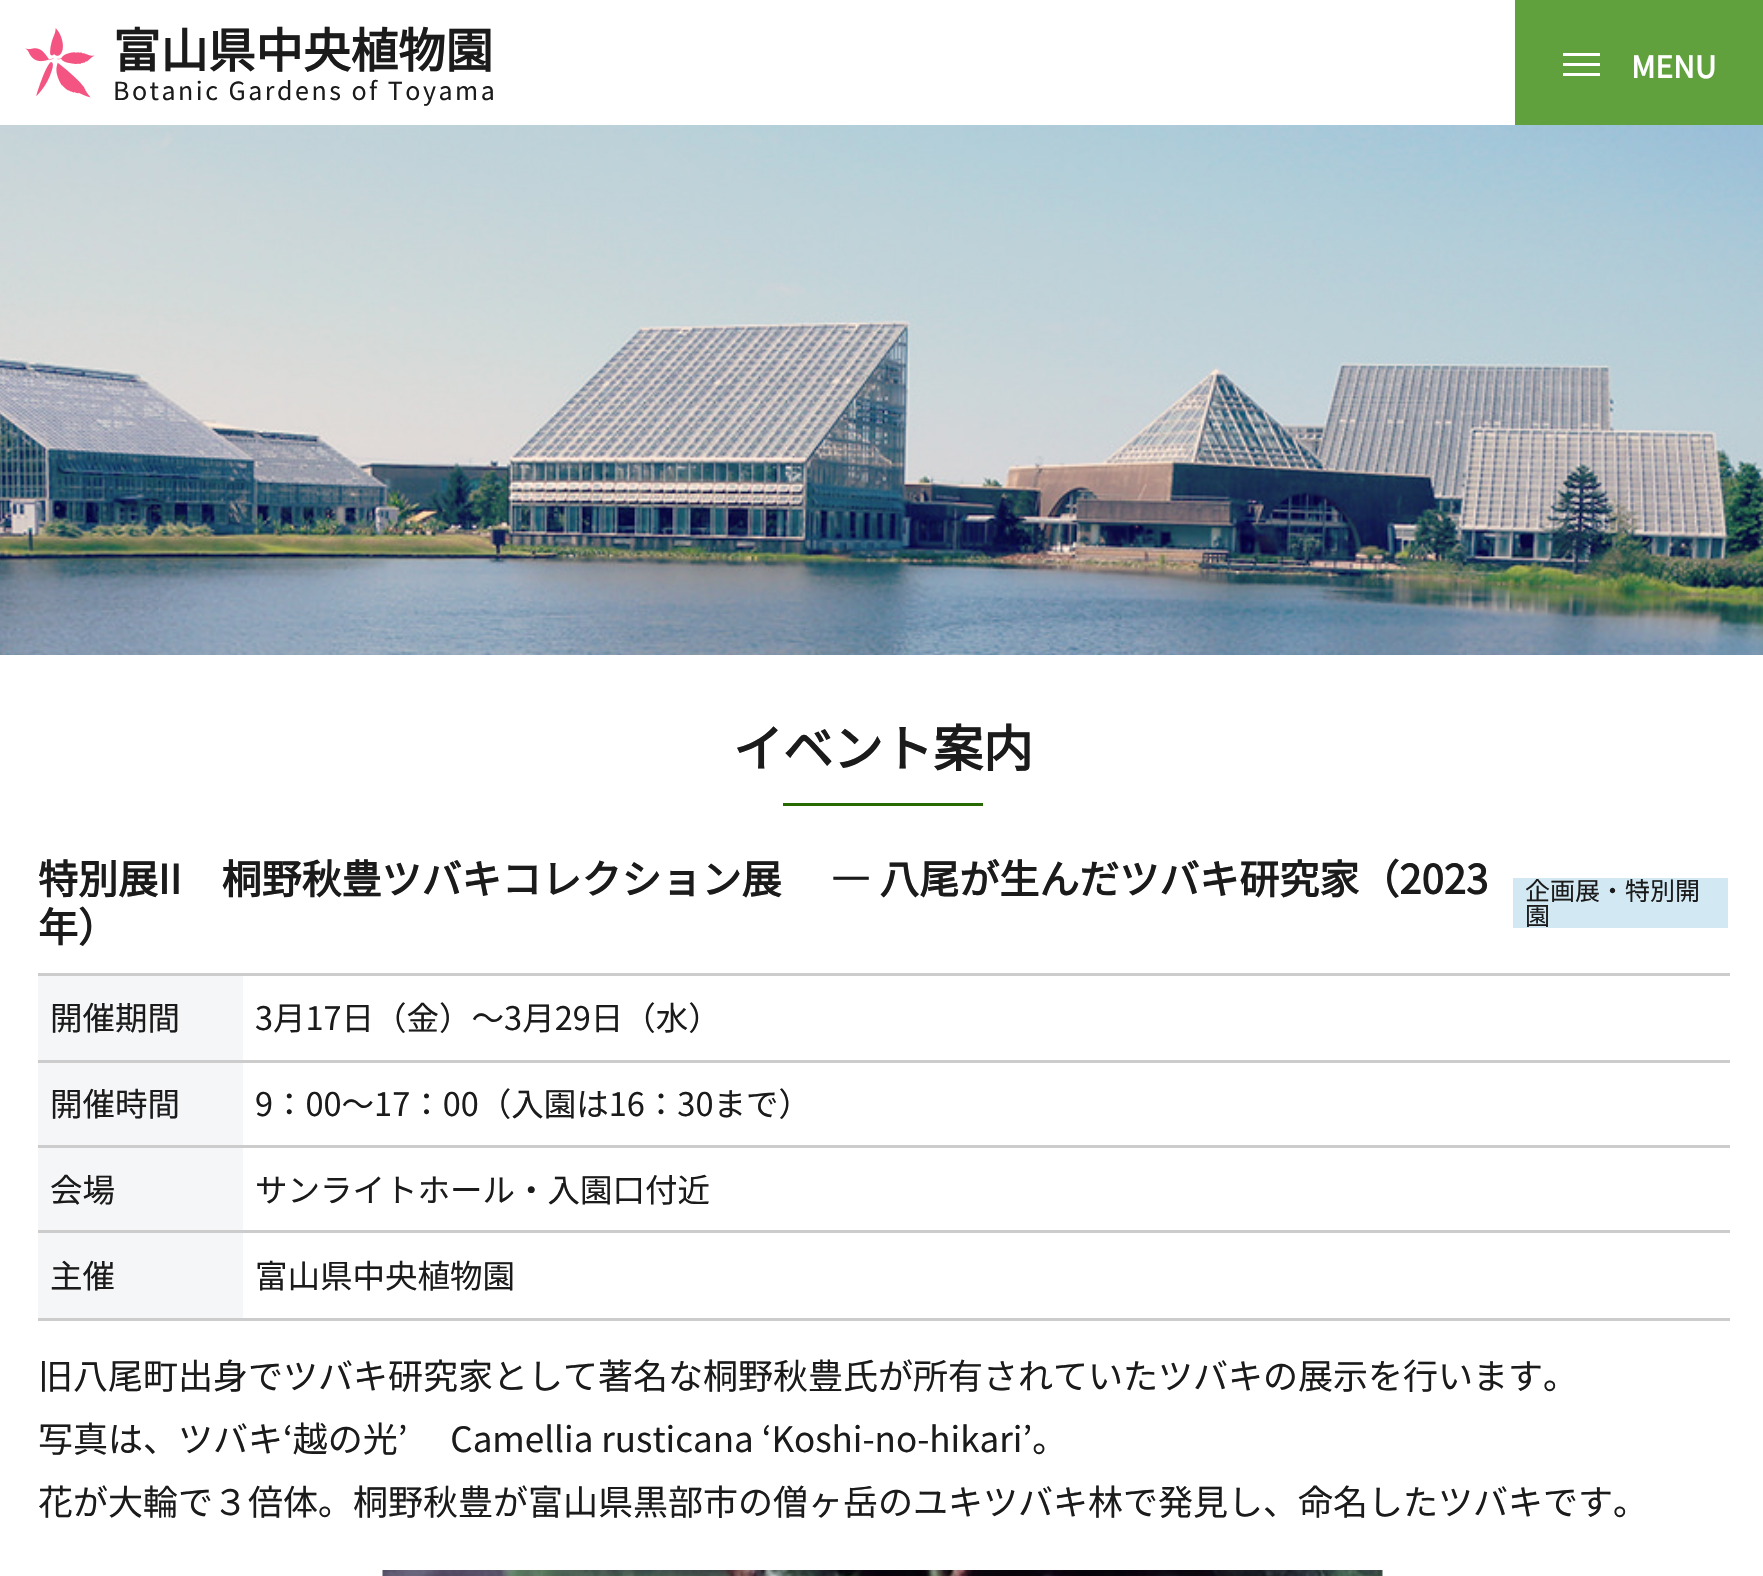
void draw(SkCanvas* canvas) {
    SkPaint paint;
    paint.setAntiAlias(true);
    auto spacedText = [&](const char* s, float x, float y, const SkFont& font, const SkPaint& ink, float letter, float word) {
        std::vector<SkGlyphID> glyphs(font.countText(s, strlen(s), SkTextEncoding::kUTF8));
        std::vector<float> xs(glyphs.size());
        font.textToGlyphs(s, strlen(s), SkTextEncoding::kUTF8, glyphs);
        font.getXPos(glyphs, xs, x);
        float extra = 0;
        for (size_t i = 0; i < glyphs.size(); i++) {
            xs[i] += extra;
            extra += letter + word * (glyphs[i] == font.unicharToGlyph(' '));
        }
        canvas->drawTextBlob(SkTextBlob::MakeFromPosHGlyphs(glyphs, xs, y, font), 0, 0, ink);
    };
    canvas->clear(0xFFFFFFFF);
    canvas->drawImageRect(SkImages::DeferredFromEncodedData(SkData::MakeFromFileName("img1.png")), SkRect::MakeXYWH(25, 28, 70, 70), SkSamplingOptions());
    SkFont font1(fontMgr->matchFamilyStyle("Noto Sans JP", SkFontStyle::Bold()), 47.5f);
    font1.setSubpixel(true);
    paint.setColor(0xFF1B1B1B);
    canvas->drawString("富山県中央植物園", 113, 68, font1, paint);
    SkFont font2(fontMgr->matchFamilyStyle("Noto Sans JP", SkFontStyle(100, SkFontStyle::kNormal_Width, SkFontStyle::kUpright_Slant)), 25);
    font2.setSubpixel(true);
    spacedText("Botanic Gardens of Toyama", 113, 100, font2, paint, 2.5f, 0);
    paint.setColor(0xFF60A13D);
    canvas->drawRect(SkRect::MakeXYWH(1515, 0, 248, 125), paint);
    paint.setColor(0xFFFFFFFF);
    canvas->drawRect(SkRect::MakeXYWH(1563, 53, 37, 3), paint);
    canvas->drawRect(SkRect::MakeXYWH(1563, 63, 37, 3), paint);
    canvas->drawRect(SkRect::MakeXYWH(1563, 73, 37, 3), paint);
    SkFont font3(fontMgr->matchFamilyStyle("Noto Sans JP", SkFontStyle::Bold()), 30);
    font3.setSubpixel(true);
    canvas->drawString("MENU", 1631, 78, font3, paint);
    canvas->drawImageRect(SkImages::DeferredFromEncodedData(SkData::MakeFromFileName("img2.png")), SkRect::MakeXYWH(0, 125, 1763, 530), SkSamplingOptions());
    SkFont font4(fontMgr->matchFamilyStyle("Noto Sans JP", SkFontStyle::Bold()), 50);
    font4.setSubpixel(true);
    paint.setColor(0xFF1B1B1B);
    canvas->drawString("イベント案内", 733, 767, font4, paint);
    paint.setColor(0xFF276902);
    canvas->drawRect(SkRect::MakeXYWH(783, 803, 200, 3), paint);
    SkFont font5(fontMgr->matchFamilyStyle("Noto Sans JP", SkFontStyle::Bold()), 40);
    font5.setSubpixel(true);
    paint.setColor(0xFF1B1B1B);
    canvas->drawString("特別展II　桐野秋豊ツバキコレクション展 　― 八尾が生んだツバキ研究家（2023", 38, 894, font5, paint);
    canvas->drawString("年）", 38, 942, font5, paint);
    paint.setColor(0xFFD2E8F2);
    canvas->drawRect(SkRect::MakeXYWH(1513, 878, 215, 50), paint);
    paint.setColor(0xFF1B1B1B);
    canvas->drawString("企画展・特別開", 1525, 900, font2, paint);
    canvas->drawString("園", 1525, 925, font2, paint);
    paint.setColor(0xFFF5F6F8);
    canvas->drawRect(SkRect::MakeXYWH(38, 976, 205, 84), paint);
    SkFont font6(fontMgr->matchFamilyStyle("Noto Sans JP", SkFontStyle(100, SkFontStyle::kNormal_Width, SkFontStyle::kUpright_Slant)), 32.5f);
    font6.setSubpixel(true);
    paint.setColor(0xFF1B1B1B);
    canvas->drawString("開催期間", 50, 1030, font6, paint);
    paint.setColor(0xFFCCCCCC);
    canvas->drawRect(SkRect::MakeXYWH(38, 973, 1692, 3), paint);
    paint.setColor(0xFF1B1B1B);
    canvas->drawString("3月17日（金）～3月29日（水）", 255, 1030, font6, paint);
    paint.setColor(0xFFF5F6F8);
    canvas->drawRect(SkRect::MakeXYWH(38, 1063, 205, 82), paint);
    paint.setColor(0xFF1B1B1B);
    canvas->drawString("開催時間", 50, 1116, font6, paint);
    paint.setColor(0xFFCCCCCC);
    canvas->drawRect(SkRect::MakeXYWH(38, 1060, 1692, 3), paint);
    paint.setColor(0xFF1B1B1B);
    canvas->drawString("9：00～17：00（入園は16：30まで）", 255, 1116, font6, paint);
    paint.setColor(0xFFF5F6F8);
    canvas->drawRect(SkRect::MakeXYWH(38, 1148, 205, 82), paint);
    paint.setColor(0xFF1B1B1B);
    canvas->drawString("会場", 50, 1202, font6, paint);
    paint.setColor(0xFFCCCCCC);
    canvas->drawRect(SkRect::MakeXYWH(38, 1145, 1692, 3), paint);
    paint.setColor(0xFF1B1B1B);
    canvas->drawString("サンライトホール・入園口付近", 255, 1202, font6, paint);
    paint.setColor(0xFFF5F6F8);
    canvas->drawRect(SkRect::MakeXYWH(38, 1233, 205, 85), paint);
    paint.setColor(0xFF1B1B1B);
    canvas->drawString("主催", 50, 1288, font6, paint);
    paint.setColor(0xFFCCCCCC);
    canvas->drawRect(SkRect::MakeXYWH(38, 1230, 1692, 3), paint);
    canvas->drawRect(SkRect::MakeXYWH(38, 1318, 1692, 3), paint);
    paint.setColor(0xFF1B1B1B);
    canvas->drawString("富山県中央植物園", 255, 1288, font6, paint);
    SkFont font7(fontMgr->matchFamilyStyle("Noto Sans JP", SkFontStyle(100, SkFontStyle::kNormal_Width, SkFontStyle::kUpright_Slant)), 35);
    font7.setSubpixel(true);
    canvas->drawString("旧八尾町出身でツバキ研究家として著名な桐野秋豊氏が所有されていたツバキの展示を行います。", 38, 1389, font7, paint);
    canvas->drawString("写真は、ツバキ‘越の光’　 Camellia rusticana ‘Koshi-no-hikari’。", 38, 1452, font7, paint);
    canvas->drawString("花が大輪で３倍体。桐野秋豊が富山県黒部市の僧ヶ岳のユキツバキ林で発見し、命名したツバキです。", 38, 1515, font7, paint);
    canvas->drawImageRect(SkImages::DeferredFromEncodedData(SkData::MakeFromFileName("img3.png")), SkRect::MakeXYWH(382, 1570, 1001, 6), SkSamplingOptions());
}
